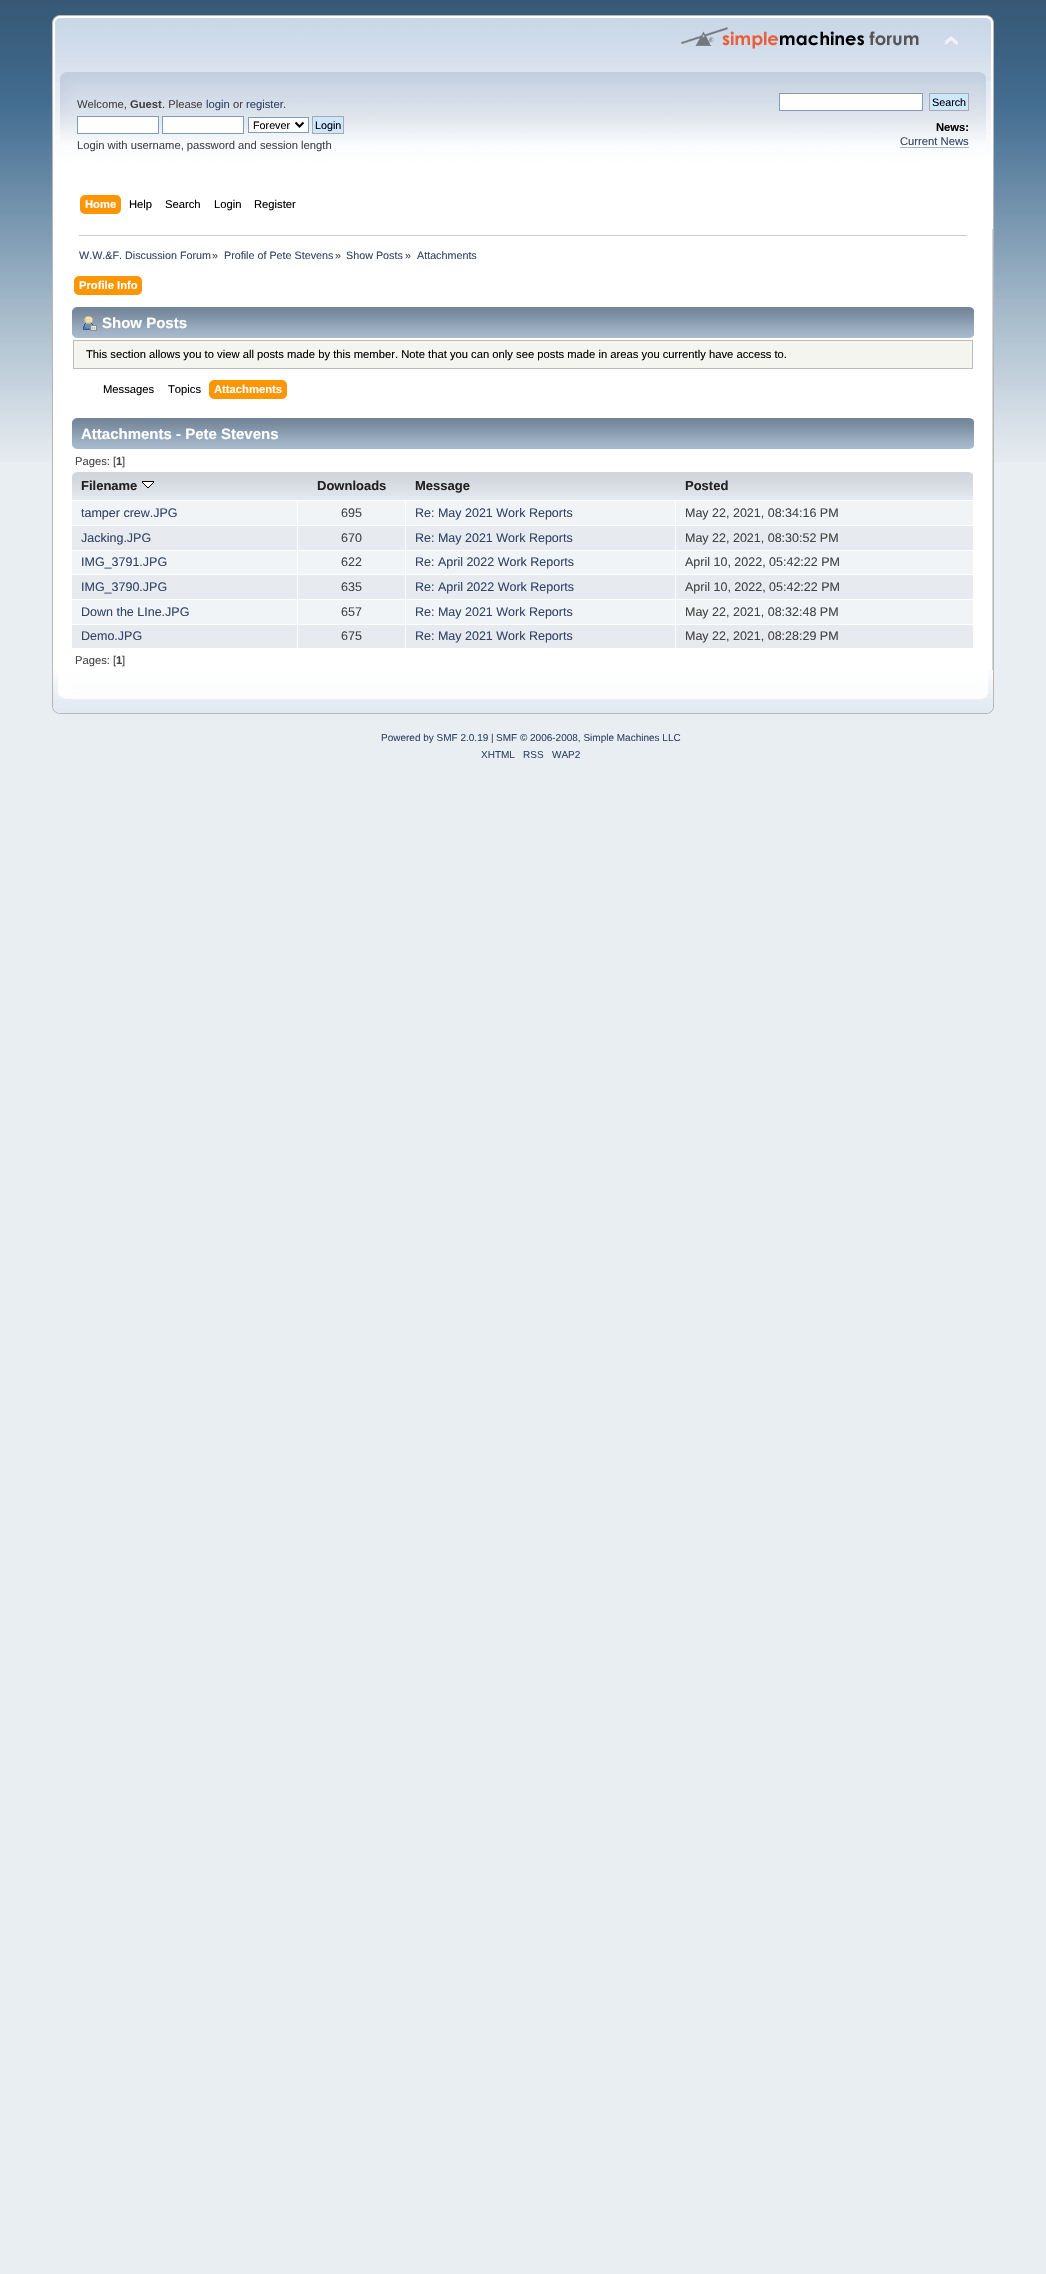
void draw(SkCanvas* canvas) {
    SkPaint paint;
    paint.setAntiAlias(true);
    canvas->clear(0xFFE9EEF2);
    canvas->drawImageRect(SkImages::DeferredFromEncodedData(SkData::MakeFromFileName("img1.png")), SkRect::MakeXYWH(0, 0, 1046, 462), SkSamplingOptions());
    canvas->drawImageRect(SkImages::DeferredFromEncodedData(SkData::MakeFromFileName("img2.png")), SkRect::MakeXYWH(52, 15, 928, 214), SkSamplingOptions());
    canvas->drawImageRect(SkImages::DeferredFromEncodedData(SkData::MakeFromFileName("img3.png")), SkRect::MakeXYWH(980, 15, 14, 214), SkSamplingOptions());
    canvas->drawImageRect(SkImages::DeferredFromEncodedData(SkData::MakeFromFileName("img4.png")), SkRect::MakeXYWH(681, 27, 238, 22), SkSamplingOptions());
    canvas->drawImageRect(SkImages::DeferredFromEncodedData(SkData::MakeFromFileName("img5.png")), SkRect::MakeXYWH(944, 35, 15, 12), SkSamplingOptions());
    SkFont font1(fontMgr->matchFamilyStyle("Liberation Sans", SkFontStyle::Normal()), 11.23f);
    font1.setSubpixel(true);
    paint.setColor(0xFF444444);
    canvas->drawString("Welcome,", 77, 108, font1, paint);
    SkFont font2(fontMgr->matchFamilyStyle("Liberation Sans", SkFontStyle::Bold()), 11.23f);
    font2.setSubpixel(true);
    canvas->drawString("Guest", 130, 108, font2, paint);
    canvas->drawString(". Please", 162, 108, font1, paint);
    paint.setColor(0xFF334466);
    canvas->drawString("login", 206, 108, font1, paint);
    paint.setColor(0xFF444444);
    canvas->drawString("or", 233, 108, font1, paint);
    paint.setColor(0xFF334466);
    canvas->drawString("register", 246, 108, font1, paint);
    paint.setColor(0xFF444444);
    canvas->drawString(".", 283, 108, font1, paint);
    paint.setColor(0xFFFFFFFF);
    canvas->drawRect(SkRect::MakeXYWH(77.5f, 116.5f, 81, 17), paint);
    paint.setStyle(SkPaint::kStroke_Style);
    paint.setStrokeWidth(1);
    paint.setColor(0xFF7F9DB9);
    canvas->drawRect(SkRect::MakeXYWH(77.5f, 116.5f, 81, 17), paint);
    paint.setStyle(SkPaint::kFill_Style);
    paint.setColor(0xFFFFFFFF);
    canvas->drawRect(SkRect::MakeXYWH(162.5f, 116.5f, 81, 17), paint);
    paint.setStyle(SkPaint::kStroke_Style);
    paint.setColor(0xFF7F9DB9);
    canvas->drawRect(SkRect::MakeXYWH(162.5f, 116.5f, 81, 17), paint);
    paint.setStyle(SkPaint::kFill_Style);
    paint.setColor(0xFFFFFFFF);
    canvas->drawRect(SkRect::MakeXYWH(248.5f, 117.5f, 60, 15), paint);
    paint.setStyle(SkPaint::kStroke_Style);
    paint.setColor(0xFF7F9DB9);
    canvas->drawRect(SkRect::MakeXYWH(248.5f, 117.5f, 60, 15), paint);
    paint.setStrokeWidth(2);
    paint.setColor(0xFF000000);
    canvas->drawPath(SkPathBuilder().moveTo(295.5f, 122.5f).lineTo(299.5f, 126.5f).lineTo(303.5f, 122.5f).detach(), paint);
    SkFont font3(fontMgr->matchFamilyStyle("Liberation Sans", SkFontStyle::Normal()), 10.75f);
    font3.setSubpixel(true);
    paint.setStyle(SkPaint::kFill_Style);
    canvas->drawString("Forever", 253, 129, font3, paint);
    paint.setColor(0xFFCDE7FF);
    canvas->drawRect(SkRect::MakeXYWH(312.5f, 116.5f, 31, 17), paint);
    paint.setStyle(SkPaint::kStroke_Style);
    paint.setStrokeWidth(1);
    paint.setColor(0xFFAAAAAA);
    canvas->drawRect(SkRect::MakeXYWH(312.5f, 116.5f, 31, 17), paint);
    paint.setStyle(SkPaint::kFill_Style);
    paint.setColor(0xFF000000);
    canvas->drawString("Login", 315, 129, font3, paint);
    paint.setColor(0xFF444444);
    canvas->drawString("Login with username, password and session length", 77, 149, font1, paint);
    paint.setColor(0xFFFFFFFF);
    canvas->drawRect(SkRect::MakeXYWH(779.5f, 93.5f, 143, 17), paint);
    paint.setStyle(SkPaint::kStroke_Style);
    paint.setColor(0xFF7F9DB9);
    canvas->drawRect(SkRect::MakeXYWH(779.5f, 93.5f, 143, 17), paint);
    paint.setStyle(SkPaint::kFill_Style);
    paint.setColor(0xFFCDE7FF);
    canvas->drawRect(SkRect::MakeXYWH(929.5f, 93.5f, 39, 17), paint);
    paint.setStyle(SkPaint::kStroke_Style);
    paint.setColor(0xFFAAAAAA);
    canvas->drawRect(SkRect::MakeXYWH(929.5f, 93.5f, 39, 17), paint);
    paint.setStyle(SkPaint::kFill_Style);
    paint.setColor(0xFF000000);
    canvas->drawString("Search", 932, 106, font3, paint);
    canvas->drawString("News:", 936, 131, font2, paint);
    paint.setColor(0xFF334466);
    canvas->drawString("Current News", 900, 145, font1, paint);
    paint.setColor(0xFFA8B6CF);
    canvas->drawRect(SkRect::MakeXYWH(900, 147, 69, 1), paint);
    canvas->drawImageRect(SkImages::DeferredFromEncodedData(SkData::MakeFromFileName("img6.png")), SkRect::MakeXYWH(85, 195, 36, 19), SkSamplingOptions());
    canvas->drawImageRect(SkImages::DeferredFromEncodedData(SkData::MakeFromFileName("img7.png")), SkRect::MakeXYWH(80, 195, 5, 19), SkSamplingOptions());
    paint.setColor(0xFFFFFFFF);
    canvas->drawString("Home", 85, 208, font2, paint);
    paint.setColor(0xFF000000);
    canvas->drawString("Help", 129, 208, font1, paint);
    canvas->drawString("Search", 165, 208, font1, paint);
    canvas->drawString("Login", 214, 208, font1, paint);
    canvas->drawString("Register", 254, 208, font1, paint);
    paint.setColor(0xFFFFFFFF);
    canvas->drawRect(SkRect::MakeXYWH(53, 229, 939, 441), paint);
    paint.setColor(0xFFB7B7B7);
    canvas->drawRect(SkRect::MakeXYWH(52, 229, 1, 441), paint);
    canvas->drawImageRect(SkImages::DeferredFromEncodedData(SkData::MakeFromFileName("img8.png")), SkRect::MakeXYWH(992, 229, 2, 441), SkSamplingOptions());
    paint.setColor(0xFFCCCCCC);
    canvas->drawRect(SkRect::MakeXYWH(79, 235, 888, 1), paint);
    paint.setColor(0xFF334466);
    canvas->drawString("W.W.&F. Discussion Forum", 79, 259, font3, paint);
    paint.setColor(0xFF444444);
    canvas->drawString("»", 212, 259, font3, paint);
    paint.setColor(0xFF334466);
    canvas->drawString("Profile of Pete Stevens", 224, 259, font3, paint);
    paint.setColor(0xFF444444);
    canvas->drawString("»", 335, 259, font3, paint);
    paint.setColor(0xFF334466);
    canvas->drawString("Show Posts", 346, 259, font3, paint);
    paint.setColor(0xFF444444);
    canvas->drawString("»", 405, 259, font3, paint);
    paint.setColor(0xFF334466);
    canvas->drawString("Attachments", 417, 259, font3, paint);
    canvas->drawImageRect(SkImages::DeferredFromEncodedData(SkData::MakeFromFileName("img9.png")), SkRect::MakeXYWH(79, 276, 63, 19), SkSamplingOptions());
    canvas->drawImageRect(SkImages::DeferredFromEncodedData(SkData::MakeFromFileName("img7.png")), SkRect::MakeXYWH(74, 276, 5, 19), SkSamplingOptions());
    paint.setColor(0xFFFFFFFF);
    canvas->drawString("Profile Info", 79, 289, font2, paint);
    canvas->drawImageRect(SkImages::DeferredFromEncodedData(SkData::MakeFromFileName("img10.png")), SkRect::MakeXYWH(72, 307, 897, 31), SkSamplingOptions());
    canvas->drawImageRect(SkImages::DeferredFromEncodedData(SkData::MakeFromFileName("img11.png")), SkRect::MakeXYWH(969, 307, 5, 31), SkSamplingOptions());
    canvas->drawImageRect(SkImages::DeferredFromEncodedData(SkData::MakeFromFileName("img12.png")), SkRect::MakeXYWH(83, 316, 14, 15), SkSamplingOptions());
    SkFont font4(fontMgr->matchFamilyStyle("Liberation Sans", SkFontStyle::Bold()), 15);
    font4.setSubpixel(true);
    canvas->drawString("Show Posts", 102, 328, font4, paint);
    paint.setColor(0xFFF5F5F0);
    canvas->drawRect(SkRect::MakeXYWH(73.5f, 340.5f, 899, 28), paint);
    paint.setStyle(SkPaint::kStroke_Style);
    paint.setColor(0xFFBBBBBB);
    canvas->drawRect(SkRect::MakeXYWH(73.5f, 340.5f, 899, 28), paint);
    paint.setStyle(SkPaint::kFill_Style);
    paint.setColor(0xFF000000);
    canvas->drawString("This section allows you to view all posts made by this member. Note that you can only see posts made in areas you currently have access to.", 86, 358, font1, paint);
    canvas->drawString("Messages", 103, 393, font1, paint);
    canvas->drawString("Topics", 168, 393, font1, paint);
    canvas->drawImageRect(SkImages::DeferredFromEncodedData(SkData::MakeFromFileName("img13.png")), SkRect::MakeXYWH(214, 380, 73, 19), SkSamplingOptions());
    canvas->drawImageRect(SkImages::DeferredFromEncodedData(SkData::MakeFromFileName("img14.png")), SkRect::MakeXYWH(209, 380, 5, 19), SkSamplingOptions());
    paint.setColor(0xFFFFFFFF);
    canvas->drawString("Attachments", 214, 393, font2, paint);
    canvas->drawImageRect(SkImages::DeferredFromEncodedData(SkData::MakeFromFileName("img10.png")), SkRect::MakeXYWH(72, 418, 897, 31), SkSamplingOptions());
    canvas->drawImageRect(SkImages::DeferredFromEncodedData(SkData::MakeFromFileName("img11.png")), SkRect::MakeXYWH(969, 418, 5, 31), SkSamplingOptions());
    canvas->drawString("Attachments - Pete Stevens", 81, 439, font4, paint);
    paint.setColor(0xFF444444);
    canvas->drawString("Pages: [", 75, 465, font1, paint);
    canvas->drawString("1", 116, 465, font2, paint);
    canvas->drawString("]", 122, 465, font1, paint);
    paint.setColor(0xFFE3E9EF);
    canvas->drawRect(SkRect::MakeXYWH(72, 496, 901, 4), paint);
    canvas->drawImageRect(SkImages::DeferredFromEncodedData(SkData::MakeFromFileName("img15.png")), SkRect::MakeXYWH(72, 472, 226, 24), SkSamplingOptions());
    SkFont font5(fontMgr->matchFamilyStyle("Liberation Sans", SkFontStyle::Bold()), 13);
    font5.setSubpixel(true);
    paint.setColor(0xFF222222);
    canvas->drawString("Filename", 81, 490, font5, paint);
    canvas->drawImageRect(SkImages::DeferredFromEncodedData(SkData::MakeFromFileName("img16.png")), SkRect::MakeXYWH(142, 481, 12, 7), SkSamplingOptions());
    canvas->drawImageRect(SkImages::DeferredFromEncodedData(SkData::MakeFromFileName("img17.png")), SkRect::MakeXYWH(298, 472, 108, 24), SkSamplingOptions());
    canvas->drawString("Downloads", 317, 490, font5, paint);
    canvas->drawImageRect(SkImages::DeferredFromEncodedData(SkData::MakeFromFileName("img18.png")), SkRect::MakeXYWH(406, 472, 270, 24), SkSamplingOptions());
    canvas->drawString("Message", 415, 490, font5, paint);
    canvas->drawImageRect(SkImages::DeferredFromEncodedData(SkData::MakeFromFileName("img19.png")), SkRect::MakeXYWH(676, 472, 297, 24), SkSamplingOptions());
    canvas->drawString("Posted", 685, 490, font5, paint);
    paint.setColor(0xFFF0F4F7);
    canvas->drawRect(SkRect::MakeXYWH(72, 501, 901, 24), paint);
    SkFont font6(fontMgr->matchFamilyStyle("Liberation Sans", SkFontStyle::Normal()), 12.5f);
    font6.setSubpixel(true);
    paint.setColor(0xFF334466);
    canvas->drawString("tamper crew.JPG", 81, 517, font6, paint);
    paint.setColor(0xFF444444);
    canvas->drawString("695", 341, 517, font6, paint);
    paint.setColor(0xFF334466);
    canvas->drawString("Re: May 2021 Work Reports", 415, 517, font6, paint);
    paint.setColor(0xFF444444);
    canvas->drawString("May 22, 2021, 08:34:16 PM", 685, 517, font6, paint);
    paint.setColor(0xFFE7EAEF);
    canvas->drawRect(SkRect::MakeXYWH(72, 526, 901, 24), paint);
    paint.setColor(0xFF334466);
    canvas->drawString("Jacking.JPG", 81, 542, font6, paint);
    paint.setColor(0xFF444444);
    canvas->drawString("670", 341, 542, font6, paint);
    paint.setColor(0xFF334466);
    canvas->drawString("Re: May 2021 Work Reports", 415, 542, font6, paint);
    paint.setColor(0xFF444444);
    canvas->drawString("May 22, 2021, 08:30:52 PM", 685, 542, font6, paint);
    paint.setColor(0xFFF0F4F7);
    canvas->drawRect(SkRect::MakeXYWH(72, 551, 901, 23), paint);
    paint.setColor(0xFF334466);
    canvas->drawString("IMG_3791.JPG", 81, 566, font6, paint);
    paint.setColor(0xFF444444);
    canvas->drawString("622", 341, 566, font6, paint);
    paint.setColor(0xFF334466);
    canvas->drawString("Re: April 2022 Work Reports", 415, 566, font6, paint);
    paint.setColor(0xFF444444);
    canvas->drawString("April 10, 2022, 05:42:22 PM", 685, 566, font6, paint);
    paint.setColor(0xFFE7EAEF);
    canvas->drawRect(SkRect::MakeXYWH(72, 575, 901, 24), paint);
    paint.setColor(0xFF334466);
    canvas->drawString("IMG_3790.JPG", 81, 591, font6, paint);
    paint.setColor(0xFF444444);
    canvas->drawString("635", 341, 591, font6, paint);
    paint.setColor(0xFF334466);
    canvas->drawString("Re: April 2022 Work Reports", 415, 591, font6, paint);
    paint.setColor(0xFF444444);
    canvas->drawString("April 10, 2022, 05:42:22 PM", 685, 591, font6, paint);
    paint.setColor(0xFFF0F4F7);
    canvas->drawRect(SkRect::MakeXYWH(72, 600, 901, 24), paint);
    paint.setColor(0xFF334466);
    canvas->drawString("Down the LIne.JPG", 81, 616, font6, paint);
    paint.setColor(0xFF444444);
    canvas->drawString("657", 341, 616, font6, paint);
    paint.setColor(0xFF334466);
    canvas->drawString("Re: May 2021 Work Reports", 415, 616, font6, paint);
    paint.setColor(0xFF444444);
    canvas->drawString("May 22, 2021, 08:32:48 PM", 685, 616, font6, paint);
    paint.setColor(0xFFE7EAEF);
    canvas->drawRect(SkRect::MakeXYWH(72, 625, 901, 23), paint);
    paint.setColor(0xFFFFFFFF);
    canvas->drawRect(SkRect::MakeXYWH(297, 500, 1, 149), paint);
    paint.setColor(0xFF334466);
    canvas->drawString("Demo.JPG", 81, 640, font6, paint);
    paint.setColor(0xFFFFFFFF);
    canvas->drawRect(SkRect::MakeXYWH(405, 500, 1, 149), paint);
    paint.setColor(0xFF444444);
    canvas->drawString("675", 341, 640, font6, paint);
    paint.setColor(0xFFFFFFFF);
    canvas->drawRect(SkRect::MakeXYWH(675, 500, 1, 149), paint);
    paint.setColor(0xFF334466);
    canvas->drawString("Re: May 2021 Work Reports", 415, 640, font6, paint);
    paint.setColor(0xFF444444);
    canvas->drawString("May 22, 2021, 08:28:29 PM", 685, 640, font6, paint);
    canvas->drawString("Pages: [", 75, 664, font1, paint);
    canvas->drawString("1", 116, 664, font2, paint);
    canvas->drawString("]", 122, 664, font1, paint);
    canvas->drawImageRect(SkImages::DeferredFromEncodedData(SkData::MakeFromFileName("img20.png")), SkRect::MakeXYWH(52, 670, 930, 44), SkSamplingOptions());
    canvas->drawImageRect(SkImages::DeferredFromEncodedData(SkData::MakeFromFileName("img21.png")), SkRect::MakeXYWH(982, 670, 12, 44), SkSamplingOptions());
    SkFont font7(fontMgr->matchFamilyStyle("Liberation Sans", SkFontStyle::Normal()), 10);
    font7.setSubpixel(true);
    paint.setColor(0xFF334466);
    canvas->drawString("Powered by SMF 2.0.19", 381, 741, font7, paint);
    paint.setColor(0xFF444444);
    canvas->drawString("|", 491, 741, font7, paint);
    paint.setColor(0xFF334466);
    canvas->drawString("SMF © 2006-2008, Simple Machines LLC", 496, 741, font7, paint);
    canvas->drawString("XHTML", 481, 758, font7, paint);
    canvas->drawString("RSS", 523, 758, font7, paint);
    canvas->drawString("WAP2", 552, 758, font7, paint);
}
